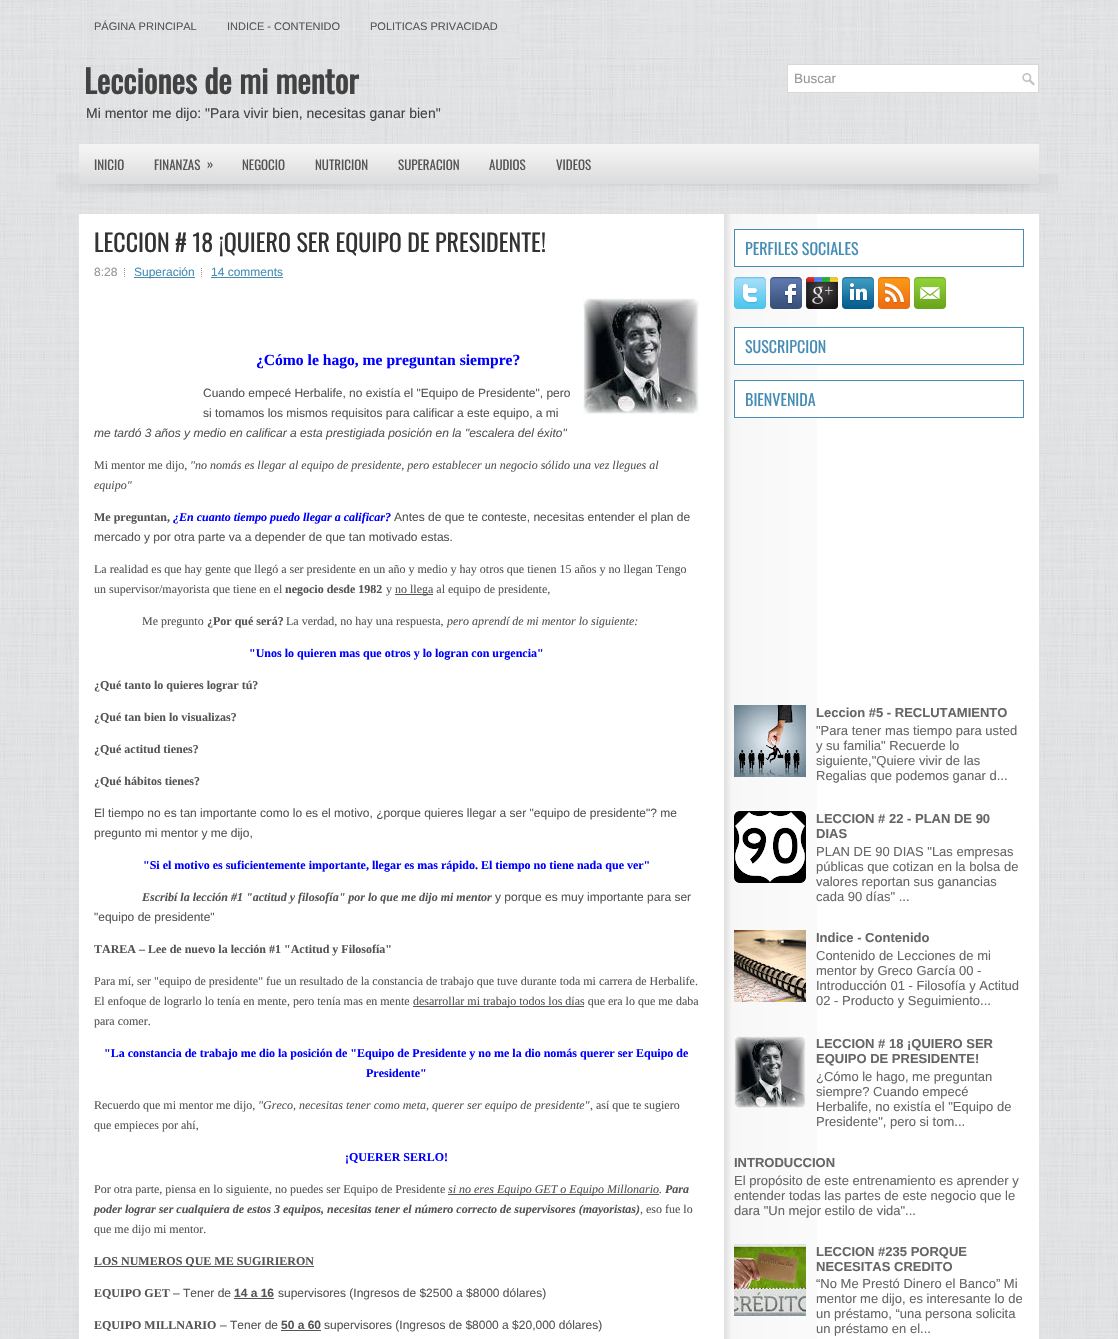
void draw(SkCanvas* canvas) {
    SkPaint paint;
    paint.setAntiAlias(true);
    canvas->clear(0xFFFFFFFF);
    canvas->drawImageRect(SkImages::DeferredFromEncodedData(SkData::MakeFromFileName("img1.png")), SkRect::MakeXYWH(0, 0, 1118, 1339), SkSamplingOptions());
    canvas->drawImageRect(SkImages::DeferredFromEncodedData(SkData::MakeFromFileName("img2.png")), SkRect::MakeXYWH(56, 174, 1003, 19), SkSamplingOptions());
    SkFont font1(fontMgr->matchFamilyStyle("Liberation Sans", SkFontStyle::Normal()), 11);
    font1.setSubpixel(true);
    paint.setColor(0xFF555555);
    canvas->drawString("PÁGINA PRINCIPAL", 94, 30, font1, paint);
    canvas->drawString("INDICE - CONTENIDO", 227, 30, font1, paint);
    canvas->drawString("POLITICAS PRIVACIDAD", 370, 30, font1, paint);
    SkFont font2(fontMgr->matchFamilyStyle("Oswald", SkFontStyle::Bold()), 32);
    font2.setSubpixel(true);
    paint.setColor(0xFF424242);
    canvas->drawString("Lecciones de mi mentor", 84, 94, font2, paint);
    SkFont font3(fontMgr->matchFamilyStyle("Liberation Sans", SkFontStyle::Normal()), 14);
    font3.setSubpixel(true);
    canvas->drawString("Mi mentor me dijo: \"Para vivir bien, necesitas ganar bien\"", 86, 118, font3, paint);
    paint.setColor(0xFFFFFFFF);
    canvas->drawRect(SkRect::MakeXYWH(788, 65, 250, 27), paint);
    canvas->drawImageRect(SkImages::DeferredFromEncodedData(SkData::MakeFromFileName("img3.png")), SkRect::MakeXYWH(1022, 73, 13, 13), SkSamplingOptions());
    paint.setStyle(SkPaint::kStroke_Style);
    paint.setStrokeWidth(1);
    paint.setColor(0xFFD8D8D8);
    canvas->drawRect(SkRect::MakeXYWH(787.5f, 64.5f, 251, 28), paint);
    SkFont font4(fontMgr->matchFamilyStyle("Liberation Sans", SkFontStyle::Normal()), 13.5f);
    font4.setSubpixel(true);
    paint.setStyle(SkPaint::kFill_Style);
    paint.setColor(0xFF979797);
    canvas->drawString("Buscar", 794, 83, font4, paint);
    canvas->drawImageRect(SkImages::DeferredFromEncodedData(SkData::MakeFromFileName("img4.png")), SkRect::MakeXYWH(79, 144, 960, 40), SkSamplingOptions());
    SkFont font5(fontMgr->matchFamilyStyle("Oswald", SkFontStyle::Normal()), 13);
    font5.setSubpixel(true);
    paint.setColor(0xFF555555);
    canvas->drawString("INICIO", 94, 170, font5, paint);
    canvas->drawString("FINANZAS", 154, 170, font5, paint);
    canvas->drawString("»", 207, 169, font5, paint);
    canvas->drawString("NEGOCIO", 242, 170, font5, paint);
    canvas->drawString("NUTRICION", 315, 170, font5, paint);
    canvas->drawString("SUPERACION", 398, 170, font5, paint);
    canvas->drawString("AUDIOS", 489, 170, font5, paint);
    canvas->drawString("VIDEOS", 556, 170, font5, paint);
    paint.setColor(0xFFFFFFFF);
    canvas->drawRect(SkRect::MakeXYWH(79, 214, 960, 1125), paint);
    canvas->drawImageRect(SkImages::DeferredFromEncodedData(SkData::MakeFromFileName("img5.png")), SkRect::MakeXYWH(724, 214, 93, 1125), SkSamplingOptions());
    SkFont font6(fontMgr->matchFamilyStyle("Oswald", SkFontStyle::Normal()), 24);
    font6.setSubpixel(true);
    paint.setColor(0xFF333333);
    canvas->drawString("LECCION # 18 ¡QUIERO SER EQUIPO DE PRESIDENTE!", 94, 252, font6, paint);
    SkFont font7(fontMgr->matchFamilyStyle("Liberation Sans", SkFontStyle::Normal()), 12);
    font7.setSubpixel(true);
    paint.setColor(0xFF979797);
    canvas->drawString("8:28", 94, 276, font7, paint);
    canvas->drawImageRect(SkImages::DeferredFromEncodedData(SkData::MakeFromFileName("img6.png")), SkRect::MakeXYWH(124, 268, 1, 9), SkSamplingOptions());
    paint.setColor(0xFF468DB5);
    canvas->drawRect(SkRect::MakeXYWH(134, 277, 61, 1), paint);
    canvas->drawString("Superación", 134, 276, font7, paint);
    canvas->drawImageRect(SkImages::DeferredFromEncodedData(SkData::MakeFromFileName("img6.png")), SkRect::MakeXYWH(201, 268, 1, 9), SkSamplingOptions());
    canvas->drawString("14 comments", 211, 276, font7, paint);
    canvas->drawRect(SkRect::MakeXYWH(211, 277, 72, 1), paint);
    canvas->drawImageRect(SkImages::DeferredFromEncodedData(SkData::MakeFromFileName("img7.png")), SkRect::MakeXYWH(583, 298, 116, 116), SkSamplingOptions());
    SkFont font8(fontMgr->matchFamilyStyle("Liberation Serif", SkFontStyle::Bold()), 15.6f);
    font8.setSubpixel(true);
    paint.setColor(0xFF0000FF);
    canvas->drawString("¿Cómo le hago, me preguntan siempre?", 256, 365, font8, paint);
    paint.setColor(0xFF555555);
    canvas->drawString("Cuando empecé Herbalife, no existía el \"Equipo de Presidente\", pero", 203, 397, font7, paint);
    canvas->drawString("si tomamos los mismos requisitos para calificar a este equipo, a mi", 203, 417, font7, paint);
    SkFont font9(fontMgr->matchFamilyStyle("Liberation Sans", SkFontStyle::Italic()), 12);
    font9.setSubpixel(true);
    canvas->drawString("me tardó 3 años y medio en calificar a esta prestigiada posición en la \"escalera del éxito\"", 94, 437, font9, paint);
    SkFont font10(fontMgr->matchFamilyStyle("Liberation Serif", SkFontStyle::Normal()), 12);
    font10.setSubpixel(true);
    canvas->drawString("Mi mentor me dijo,", 94, 469, font10, paint);
    SkFont font11(fontMgr->matchFamilyStyle("Liberation Serif", SkFontStyle::Italic()), 12);
    font11.setSubpixel(true);
    canvas->drawString("\"no nomás es llegar al equipo de presidente, pero establecer un negocio sólido una vez llegues al", 190, 469, font11, paint);
    canvas->drawString("equipo\"", 94, 489, font11, paint);
    SkFont font12(fontMgr->matchFamilyStyle("Liberation Serif", SkFontStyle::Bold()), 12);
    font12.setSubpixel(true);
    canvas->drawString("Me preguntan,", 94, 521, font12, paint);
    SkFont font13(fontMgr->matchFamilyStyle("Liberation Serif", SkFontStyle::BoldItalic()), 12);
    font13.setSubpixel(true);
    paint.setColor(0xFF0000FF);
    canvas->drawString("¿En cuanto tiempo puedo llegar a calificar?", 173, 521, font13, paint);
    paint.setColor(0xFF555555);
    canvas->drawString("Antes de que te conteste, necesitas entender el plan de", 394, 521, font7, paint);
    canvas->drawString("mercado y por otra parte va a depender de que tan motivado estas.", 94, 541, font7, paint);
    canvas->drawString("La realidad es que hay gente que llegó a ser presidente en un año y medio y hay otros que tienen 15 años y no llegan Tengo", 94, 573, font10, paint);
    canvas->drawString("un supervisor/mayorista que tiene en el", 94, 593, font10, paint);
    canvas->drawString("negocio desde 1982", 285, 593, font12, paint);
    canvas->drawString("y", 386, 593, font10, paint);
    canvas->drawRect(SkRect::MakeXYWH(395, 594, 38, 1), paint);
    canvas->drawString("no llega al equipo de presidente,", 395, 593, font10, paint);
    canvas->drawString("Me pregunto", 142, 625, font10, paint);
    canvas->drawString("¿Por qué será?", 207, 625, font12, paint);
    canvas->drawString("La verdad, no hay una respuesta,", 286, 625, font10, paint);
    canvas->drawString("pero aprendí de mi mentor lo siguiente:", 447, 625, font11, paint);
    paint.setColor(0xFF0000FF);
    canvas->drawString("\"Unos lo quieren mas que otros y lo logran con urgencia\"", 249, 657, font12, paint);
    paint.setColor(0xFF555555);
    canvas->drawString("¿Qué tanto lo quieres lograr tú?", 94, 689, font12, paint);
    canvas->drawString("¿Qué tan bien lo visualizas?", 94, 721, font12, paint);
    canvas->drawString("¿Qué actitud tienes?", 94, 753, font12, paint);
    canvas->drawString("¿Qué hábitos tienes?", 94, 785, font12, paint);
    canvas->drawString("El tiempo no es tan importante como lo es el motivo, ¿porque quieres llegar a ser \"equipo de presidente\"? me", 94, 817, font7, paint);
    canvas->drawString("pregunto mi mentor y me dijo,", 94, 837, font7, paint);
    paint.setColor(0xFF0000FF);
    canvas->drawString("\"Si el motivo es suficientemente importante, llegar es mas rápido. El tiempo no tiene nada que ver\"", 143, 869, font12, paint);
    paint.setColor(0xFF555555);
    canvas->drawString("Escribí la lección #1 \"actitud y filosofía\" por lo que me dijo mi mentor", 142, 901, font13, paint);
    canvas->drawString("y porque es muy importante para ser", 495, 901, font7, paint);
    canvas->drawString("\"equipo de presidente\"", 94, 921, font7, paint);
    canvas->drawString("TAREA – Lee de nuevo la lección #1 \"Actitud y Filosofía\"", 94, 953, font12, paint);
    canvas->drawString("Para mí, ser \"equipo de presidente\" fue un resultado de la constancia de trabajo que tuve durante toda mi carrera de Herbalife.", 94, 985, font10, paint);
    canvas->drawString("El enfoque de lograrlo lo tenía en mente, pero tenía mas en mente", 94, 1005, font10, paint);
    canvas->drawRect(SkRect::MakeXYWH(413, 1006, 171, 1), paint);
    canvas->drawString("desarrollar mi trabajo todos los días que era lo que me daba", 413, 1005, font10, paint);
    canvas->drawString("para comer.", 94, 1025, font10, paint);
    paint.setColor(0xFF0000FF);
    canvas->drawString("\"La constancia de trabajo me dio la posición de \"Equipo de Presidente y no me la dio nomás querer ser Equipo de", 104, 1057, font12, paint);
    canvas->drawString("Presidente\"", 366, 1077, font12, paint);
    paint.setColor(0xFF555555);
    canvas->drawString("Recuerdo que mi mentor me dijo,", 94, 1109, font10, paint);
    canvas->drawString("\"Greco, necesitas tener como meta, querer ser equipo de presidente\"", 258, 1109, font11, paint);
    canvas->drawString(", así que te sugiero", 590, 1109, font10, paint);
    canvas->drawString("que empieces por ahí,", 94, 1129, font10, paint);
    paint.setColor(0xFF0000FF);
    canvas->drawString("¡QUERER SERLO!", 345, 1161, font12, paint);
    paint.setColor(0xFF555555);
    canvas->drawString("Por otra parte, piensa en lo siguiente, no puedes ser Equipo de Presidente", 94, 1193, font10, paint);
    canvas->drawRect(SkRect::MakeXYWH(448, 1194, 211, 1), paint);
    canvas->drawString("si no eres Equipo GET o Equipo Millonario.", 448, 1193, font11, paint);
    canvas->drawString("Para", 665, 1193, font13, paint);
    canvas->drawString("poder lograr ser cualquiera de estos 3 equipos, necesitas tener el número correcto de supervisores (mayoristas)", 94, 1213, font13, paint);
    canvas->drawString(", eso fue lo", 640, 1213, font10, paint);
    canvas->drawString("que me dijo mi mentor.", 94, 1233, font10, paint);
    canvas->drawRect(SkRect::MakeXYWH(94, 1266, 220, 1), paint);
    canvas->drawString("LOS NUMEROS QUE ME SUGIRIERON", 94, 1265, font12, paint);
    canvas->drawString("EQUIPO GET", 94, 1297, font12, paint);
    canvas->drawString("– Tener de", 173, 1297, font7, paint);
    SkFont font14(fontMgr->matchFamilyStyle("Liberation Sans", SkFontStyle::Bold()), 12);
    font14.setSubpixel(true);
    canvas->drawString("14 a 16", 234, 1297, font14, paint);
    canvas->drawRect(SkRect::MakeXYWH(234, 1298, 40, 1), paint);
    canvas->drawString("supervisores (Ingresos de $2500 a $8000 dólares)", 278, 1297, font7, paint);
    canvas->drawString("EQUIPO MILLNARIO", 94, 1329, font12, paint);
    canvas->drawString("– Tener de", 220, 1329, font7, paint);
    canvas->drawString("50 a 60", 281, 1329, font14, paint);
    canvas->drawRect(SkRect::MakeXYWH(281, 1330, 40, 1), paint);
    canvas->drawString("supervisores (Ingresos de $8000 a $20,000 dólares)", 324, 1329, font7, paint);
    paint.setColor(0xFFFFFFFF);
    canvas->drawRect(SkRect::MakeXYWH(735, 230, 82, 36), paint);
    paint.setStyle(SkPaint::kStroke_Style);
    paint.setColor(0xFF468DB5);
    canvas->drawRect(SkRect::MakeXYWH(734.5f, 229.5f, 289, 37), paint);
    SkFont font15(fontMgr->matchFamilyStyle("Oswald", SkFontStyle::Normal()), 16);
    font15.setSubpixel(true);
    paint.setStyle(SkPaint::kFill_Style);
    canvas->drawString("PERFILES SOCIALES", 745, 255, font15, paint);
    canvas->drawImageRect(SkImages::DeferredFromEncodedData(SkData::MakeFromFileName("img8.png")), SkRect::MakeXYWH(734, 277, 32, 32), SkSamplingOptions());
    canvas->drawImageRect(SkImages::DeferredFromEncodedData(SkData::MakeFromFileName("img9.png")), SkRect::MakeXYWH(770, 277, 32, 32), SkSamplingOptions());
    canvas->drawImageRect(SkImages::DeferredFromEncodedData(SkData::MakeFromFileName("img10.png")), SkRect::MakeXYWH(806, 277, 32, 32), SkSamplingOptions());
    canvas->drawImageRect(SkImages::DeferredFromEncodedData(SkData::MakeFromFileName("img11.png")), SkRect::MakeXYWH(842, 277, 32, 32), SkSamplingOptions());
    canvas->drawImageRect(SkImages::DeferredFromEncodedData(SkData::MakeFromFileName("img12.png")), SkRect::MakeXYWH(878, 277, 32, 32), SkSamplingOptions());
    canvas->drawImageRect(SkImages::DeferredFromEncodedData(SkData::MakeFromFileName("img13.png")), SkRect::MakeXYWH(914, 277, 32, 32), SkSamplingOptions());
    paint.setColor(0xFFFFFFFF);
    canvas->drawRect(SkRect::MakeXYWH(735, 328, 82, 36), paint);
    paint.setStyle(SkPaint::kStroke_Style);
    paint.setColor(0xFF468DB5);
    canvas->drawRect(SkRect::MakeXYWH(734.5f, 327.5f, 289, 37), paint);
    paint.setStyle(SkPaint::kFill_Style);
    canvas->drawString("SUSCRIPCION", 745, 353, font15, paint);
    paint.setColor(0xFFFFFFFF);
    canvas->drawRect(SkRect::MakeXYWH(735, 381, 82, 36), paint);
    paint.setStyle(SkPaint::kStroke_Style);
    paint.setColor(0xFF468DB5);
    canvas->drawRect(SkRect::MakeXYWH(734.5f, 380.5f, 289, 37), paint);
    paint.setStyle(SkPaint::kFill_Style);
    canvas->drawString("BIENVENIDA", 745, 406, font15, paint);
    canvas->drawImageRect(SkImages::DeferredFromEncodedData(SkData::MakeFromFileName("img14.png")), SkRect::MakeXYWH(734, 705, 72, 72), SkSamplingOptions());
    SkFont font16(fontMgr->matchFamilyStyle("Liberation Sans", SkFontStyle::Bold()), 13);
    font16.setSubpixel(true);
    paint.setColor(0xFF666666);
    canvas->drawString("Leccion #5 - RECLUTAMIENTO", 816, 717, font16, paint);
    SkFont font17(fontMgr->matchFamilyStyle("Liberation Sans", SkFontStyle::Normal()), 13);
    font17.setSubpixel(true);
    canvas->drawString("\"Para tener mas tiempo para usted", 816, 735, font17, paint);
    canvas->drawString("y su familia\" Recuerde lo", 816, 750, font17, paint);
    canvas->drawString("siguiente,\"Quiere vivir de las", 816, 765, font17, paint);
    canvas->drawString("Regalias que podemos ganar d...", 816, 780, font17, paint);
    canvas->drawImageRect(SkImages::DeferredFromEncodedData(SkData::MakeFromFileName("img15.png")), SkRect::MakeXYWH(734, 811, 72, 72), SkSamplingOptions());
    canvas->drawString("LECCION # 22 - PLAN DE 90", 816, 823, font16, paint);
    canvas->drawString("DIAS", 816, 838, font16, paint);
    canvas->drawString("PLAN DE 90 DIAS \"Las empresas", 816, 856, font17, paint);
    canvas->drawString("públicas que cotizan en la bolsa de", 816, 871, font17, paint);
    canvas->drawString("valores reportan sus ganancias", 816, 886, font17, paint);
    canvas->drawString("cada 90 días\" ...", 816, 901, font17, paint);
    canvas->drawImageRect(SkImages::DeferredFromEncodedData(SkData::MakeFromFileName("img16.png")), SkRect::MakeXYWH(734, 930, 72, 72), SkSamplingOptions());
    canvas->drawString("Indice - Contenido", 816, 942, font16, paint);
    canvas->drawString("Contenido de Lecciones de mi", 816, 960, font17, paint);
    canvas->drawString("mentor by Greco García 00 -", 816, 975, font17, paint);
    canvas->drawString("Introducción 01 - Filosofía y Actitud", 816, 990, font17, paint);
    canvas->drawString("02 - Producto y Seguimiento...", 816, 1005, font17, paint);
    canvas->drawImageRect(SkImages::DeferredFromEncodedData(SkData::MakeFromFileName("img17.png")), SkRect::MakeXYWH(734, 1036, 72, 72), SkSamplingOptions());
    canvas->drawString("LECCION # 18 ¡QUIERO SER", 816, 1048, font16, paint);
    canvas->drawString("EQUIPO DE PRESIDENTE!", 816, 1063, font16, paint);
    canvas->drawString("¿Cómo le hago, me preguntan", 816, 1081, font17, paint);
    canvas->drawString("siempre? Cuando empecé", 816, 1096, font17, paint);
    canvas->drawString("Herbalife, no existía el \"Equipo de", 816, 1111, font17, paint);
    canvas->drawString("Presidente\", pero si tom...", 816, 1126, font17, paint);
    canvas->drawString("INTRODUCCION", 734, 1167, font16, paint);
    canvas->drawString("El propósito de este entrenamiento es aprender y", 734, 1185, font17, paint);
    canvas->drawString("entender todas las partes de este negocio que le", 734, 1200, font17, paint);
    canvas->drawString("dara \"Un mejor estilo de vida\"...", 734, 1215, font17, paint);
    canvas->drawImageRect(SkImages::DeferredFromEncodedData(SkData::MakeFromFileName("img18.png")), SkRect::MakeXYWH(734, 1244, 72, 72), SkSamplingOptions());
    canvas->drawString("LECCION #235 PORQUE", 816, 1256, font16, paint);
    canvas->drawString("NECESITAS CREDITO", 816, 1271, font16, paint);
    canvas->drawString("“No Me Prestó Dinero el Banco” Mi", 816, 1288, font17, paint);
    canvas->drawString("mentor me dijo, es interesante lo de", 816, 1303, font17, paint);
    canvas->drawString("un préstamo, “una persona solicita", 816, 1318, font17, paint);
    canvas->drawString("un préstamo en el...", 816, 1333, font17, paint);
}
